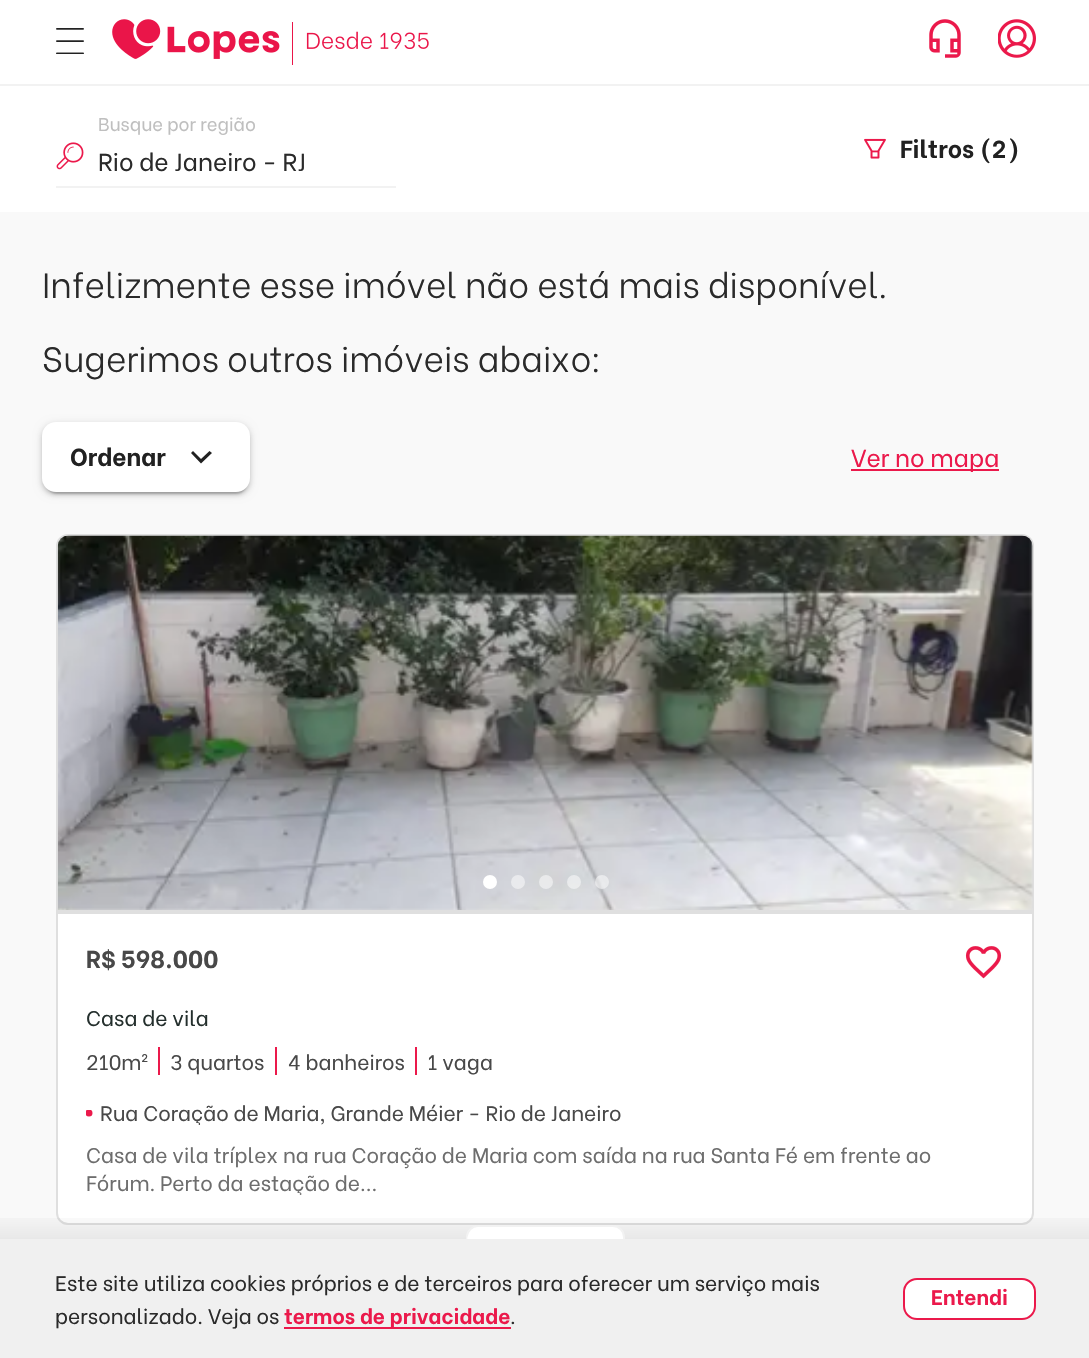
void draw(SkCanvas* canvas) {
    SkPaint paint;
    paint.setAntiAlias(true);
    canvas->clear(0xFFFFFFFF);
    paint.setColor(0xFFF2F2F2);
    canvas->drawRect(SkRect::MakeXYWH(0, 84, 1089, 2), paint);
    canvas->drawImageRect(SkImages::DeferredFromEncodedData(SkData::MakeFromFileName("img1.png")), SkRect::MakeXYWH(56, 28, 28, 26), SkSamplingOptions());
    canvas->drawImageRect(SkImages::DeferredFromEncodedData(SkData::MakeFromFileName("img2.png")), SkRect::MakeXYWH(112, 19, 317, 46), SkSamplingOptions());
    canvas->drawImageRect(SkImages::DeferredFromEncodedData(SkData::MakeFromFileName("img3.png")), SkRect::MakeXYWH(929, 19, 32, 39), SkSamplingOptions());
    canvas->drawImageRect(SkImages::DeferredFromEncodedData(SkData::MakeFromFileName("img4.png")), SkRect::MakeXYWH(998, 19, 38, 39), SkSamplingOptions());
    canvas->drawImageRect(SkImages::DeferredFromEncodedData(SkData::MakeFromFileName("img5.png")), SkRect::MakeXYWH(56, 142, 28, 28), SkSamplingOptions());
    SkFont font1(fontMgr->matchFamilyStyle("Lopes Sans", SkFontStyle::Normal()), 18.4f);
    font1.setSubpixel(true);
    paint.setColor(0xFFBFBFBF);
    canvas->drawString("Busque por região", 98, 131, font1, paint);
    SkFont font2(fontMgr->matchFamilyStyle("Lopes Sans", SkFontStyle::Normal()), 24.5f);
    font2.setSubpixel(true);
    paint.setColor(0xFF2A2A2A);
    canvas->drawString("Rio de Janeiro - RJ", 98, 171, font2, paint);
    paint.setColor(0xFFF2F2F2);
    canvas->drawRect(SkRect::MakeXYWH(56, 186, 340, 2), paint);
    canvas->drawImageRect(SkImages::DeferredFromEncodedData(SkData::MakeFromFileName("img6.png")), SkRect::MakeXYWH(864, 138, 22, 21), SkSamplingOptions());
    SkFont font3(fontMgr->matchFamilyStyle("Lopes Sans", SkFontStyle::Bold()), 24.5f);
    font3.setSubpixel(true);
    paint.setColor(0xFF212121);
    canvas->drawString("Filtros (2)", 900, 158, font3, paint);
    paint.setColor(0xFFF9F9F9);
    canvas->drawRect(SkRect::MakeXYWH(0, 212, 1089, 1027), paint);
    SkFont font4(fontMgr->matchFamilyStyle("Lopes Sans", SkFontStyle(300, SkFontStyle::kNormal_Width, SkFontStyle::kUpright_Slant)), 35);
    font4.setSubpixel(true);
    paint.setColor(0xFF2A2A2A);
    canvas->drawString("Infelizmente esse imóvel não está mais disponível.", 42, 298, font4, paint);
    canvas->drawString("Sugerimos outros imóveis abaixo:", 42, 372, font4, paint);
    paint.setColor(0x1F000000);
    paint.setMaskFilter(SkMaskFilter::MakeBlur(kNormal_SkBlurStyle, 4.5f));
    canvas->drawRoundRect(SkRect::MakeXYWH(42, 424, 208, 70), 14, 14, paint);
    paint.setMaskFilter(nullptr);
    paint.setColor(0x24000000);
    paint.setMaskFilter(SkMaskFilter::MakeBlur(kNormal_SkBlurStyle, 2));
    canvas->drawRoundRect(SkRect::MakeXYWH(42, 425, 208, 70), 14, 14, paint);
    paint.setMaskFilter(nullptr);
    paint.setColor(0x33000000);
    paint.setMaskFilter(SkMaskFilter::MakeBlur(kNormal_SkBlurStyle, 1));
    canvas->drawRoundRect(SkRect::MakeXYWH(46, 431, 201, 63), 11, 11, paint);
    paint.setMaskFilter(nullptr);
    paint.setColor(0xFFFFFFFF);
    canvas->drawRoundRect(SkRect::MakeXYWH(42, 422, 208, 70), 14, 14, paint);
    paint.setColor(0xFF212121);
    canvas->drawString("Ordenar", 70, 466, font3, paint);
    canvas->drawPath(SkPathBuilder().moveTo(209.5f, 451).lineTo(212, 453).lineTo(201, 463.5f).lineTo(191, 453).lineTo(193, 451).lineTo(201, 459).close().detach(), paint);
    paint.setColor(0xFFEB194B);
    canvas->drawRect(SkRect::MakeXYWH(851, 469, 148, 2), paint);
    canvas->drawString("Ver no mapa", 851, 467, font2, paint);
    paint.setColor(0xFFFFFFFF);
    canvas->drawRoundRect(SkRect::MakeXYWH(57, 535, 976, 689), 11, 11, paint);
    paint.setStyle(SkPaint::kStroke_Style);
    paint.setStrokeWidth(2);
    paint.setColor(0xFFDFDFDF);
    canvas->drawRoundRect(SkRect::MakeXYWH(57, 535, 976, 689), 11, 11, paint);
    paint.setStyle(SkPaint::kFill_Style);
    canvas->drawPath(SkPathBuilder().moveTo(69, 536).lineTo(1022, 536).cubicTo(1028, 536, 1033, 541, 1033, 547).lineTo(1033, 914).lineTo(58, 914).lineTo(58, 547).cubicTo(58, 541, 63, 536, 69, 536).close().detach(), paint);
    canvas->drawPath(SkPathBuilder().moveTo(69, 536).lineTo(1022, 536).cubicTo(1028, 536, 1033, 541, 1033, 547).lineTo(1033, 910).lineTo(58, 910).lineTo(58, 547).cubicTo(58, 541, 63, 536, 69, 536).close().detach(), paint);
    canvas->drawImageRect(SkImages::DeferredFromEncodedData(SkData::MakeFromFileName("img7.png")), SkRect::MakeXYWH(57, 535, 976, 375), SkSamplingOptions());
    paint.setColor(0xFFFFFFFF);
    canvas->drawCircle(490, 882, 7, paint);
    paint.setColor(0x80FFFFFF);
    canvas->drawCircle(518, 882, 7, paint);
    canvas->drawCircle(546, 882, 7, paint);
    canvas->drawCircle(574, 882, 7, paint);
    canvas->drawCircle(602, 882, 7, paint);
    paint.setColor(0xFF484848);
    canvas->drawString("R$ 598.000", 86, 968, font3, paint);
    canvas->drawImageRect(SkImages::DeferredFromEncodedData(SkData::MakeFromFileName("img8.png")), SkRect::MakeXYWH(965, 946, 37, 33), SkSamplingOptions());
    SkFont font5(fontMgr->matchFamilyStyle("Lopes Sans", SkFontStyle::Normal()), 21);
    font5.setSubpixel(true);
    paint.setColor(0xFF242F2D);
    canvas->drawString("Casa de vila", 86, 1026, font5, paint);
    paint.setColor(0xFFEB194B);
    canvas->drawRect(SkRect::MakeXYWH(158, 1047, 2, 28), paint);
    paint.setColor(0xFF484848);
    canvas->drawString("210m²", 86, 1070, font5, paint);
    paint.setColor(0xFFEB194B);
    canvas->drawRect(SkRect::MakeXYWH(275, 1047, 2, 28), paint);
    paint.setColor(0xFF484848);
    canvas->drawString("3 quartos", 170, 1070, font5, paint);
    paint.setColor(0xFFEB194B);
    canvas->drawRect(SkRect::MakeXYWH(415, 1047, 2, 28), paint);
    paint.setColor(0xFF484848);
    canvas->drawString("4 banheiros", 288, 1070, font5, paint);
    canvas->drawString("1 vaga", 427, 1070, font5, paint);
    canvas->save();
    canvas->clipRect(SkRect::MakeXYWH(86, 1110, 7, 7));
    paint.setColor(0xFFEB194B);
    canvas->drawCircle(89, 1113, 3.5f, paint);
    canvas->restore();
    canvas->save();
    canvas->clipRect(SkRect::MakeXYWH(100, 1097, 521, 28));
    paint.setColor(0xFF484848);
    canvas->drawString("Rua Coração de Maria, Grande Méier - Rio de Janeiro", 100, 1121, font5, paint);
    canvas->restore();
    paint.setColor(0xFF6D6D6D);
    canvas->drawString("Casa de vila tríplex na rua Coração de Maria com saída na rua Santa Fé em frente ao", 86, 1163, font5, paint);
    canvas->save();
    canvas->clipRect(SkRect::MakeXYWH(86, 1139, 919, 56));
    canvas->drawString("Fórum. Perto da estação de...", 86, 1191, font5, paint);
    canvas->restore();
    {
        const SkColor colors[] = {0x00000000, 0x52000000};
        const float stops[] = {0.22f, 1};
        const SkPoint ends[] = {{545, 1166}, {545, 1358}};
        paint.setShader(SkGradientShader::MakeLinear(ends, colors, stops, 2, SkTileMode::kClamp));
        paint.setAlpha(255);
    }
    canvas->drawRect(SkRect::MakeXYWH(0, 1218, 1089, 21), paint);
    paint.setShader(nullptr);
    paint.setColor(0xFFFFFFFF);
    canvas->drawRoundRect(SkRect::MakeXYWH(467, 1226, 157, 72), 11, 11, paint);
    paint.setStyle(SkPaint::kStroke_Style);
    paint.setColor(0xFFF2F2F2);
    canvas->drawRoundRect(SkRect::MakeXYWH(467, 1226, 157, 72), 11, 11, paint);
    paint.setStyle(SkPaint::kFill_Style);
    paint.setColor(0xFFFFFFFF);
    canvas->drawRoundRect(SkRect::MakeXYWH(467, 1227, 156, 70), 14, 14, paint);
    paint.setColor(0xFFF0F0F0);
    canvas->drawRect(SkRect::MakeXYWH(0, 1239, 1089, 119), paint);
    paint.setColor(0xFF2A2A2A);
    canvas->drawString("Este site utiliza cookies próprios e de terceiros para oferecer um serviço mais", 55, 1291, font5, paint);
    canvas->drawString("personalizado. Veja os", 55, 1324, font5, paint);
    paint.setColor(0xFFEB194B);
    canvas->drawRect(SkRect::MakeXYWH(284, 1327, 227, 2), paint);
    SkFont font6(fontMgr->matchFamilyStyle("Lopes Sans", SkFontStyle::Bold()), 21);
    font6.setSubpixel(true);
    canvas->drawString("termos de privacidade", 284, 1324, font6, paint);
    paint.setColor(0xFF2A2A2A);
    canvas->drawString(".", 510, 1324, font5, paint);
    paint.setColor(0xFFFFFFFF);
    canvas->drawRoundRect(SkRect::MakeXYWH(904, 1279, 131, 40), 13, 13, paint);
    paint.setStyle(SkPaint::kStroke_Style);
    paint.setColor(0xFFEB194B);
    canvas->drawRoundRect(SkRect::MakeXYWH(904, 1279, 131, 40), 13, 13, paint);
    paint.setStyle(SkPaint::kFill_Style);
    canvas->drawString("Entendi", 931, 1305, font6, paint);
}
